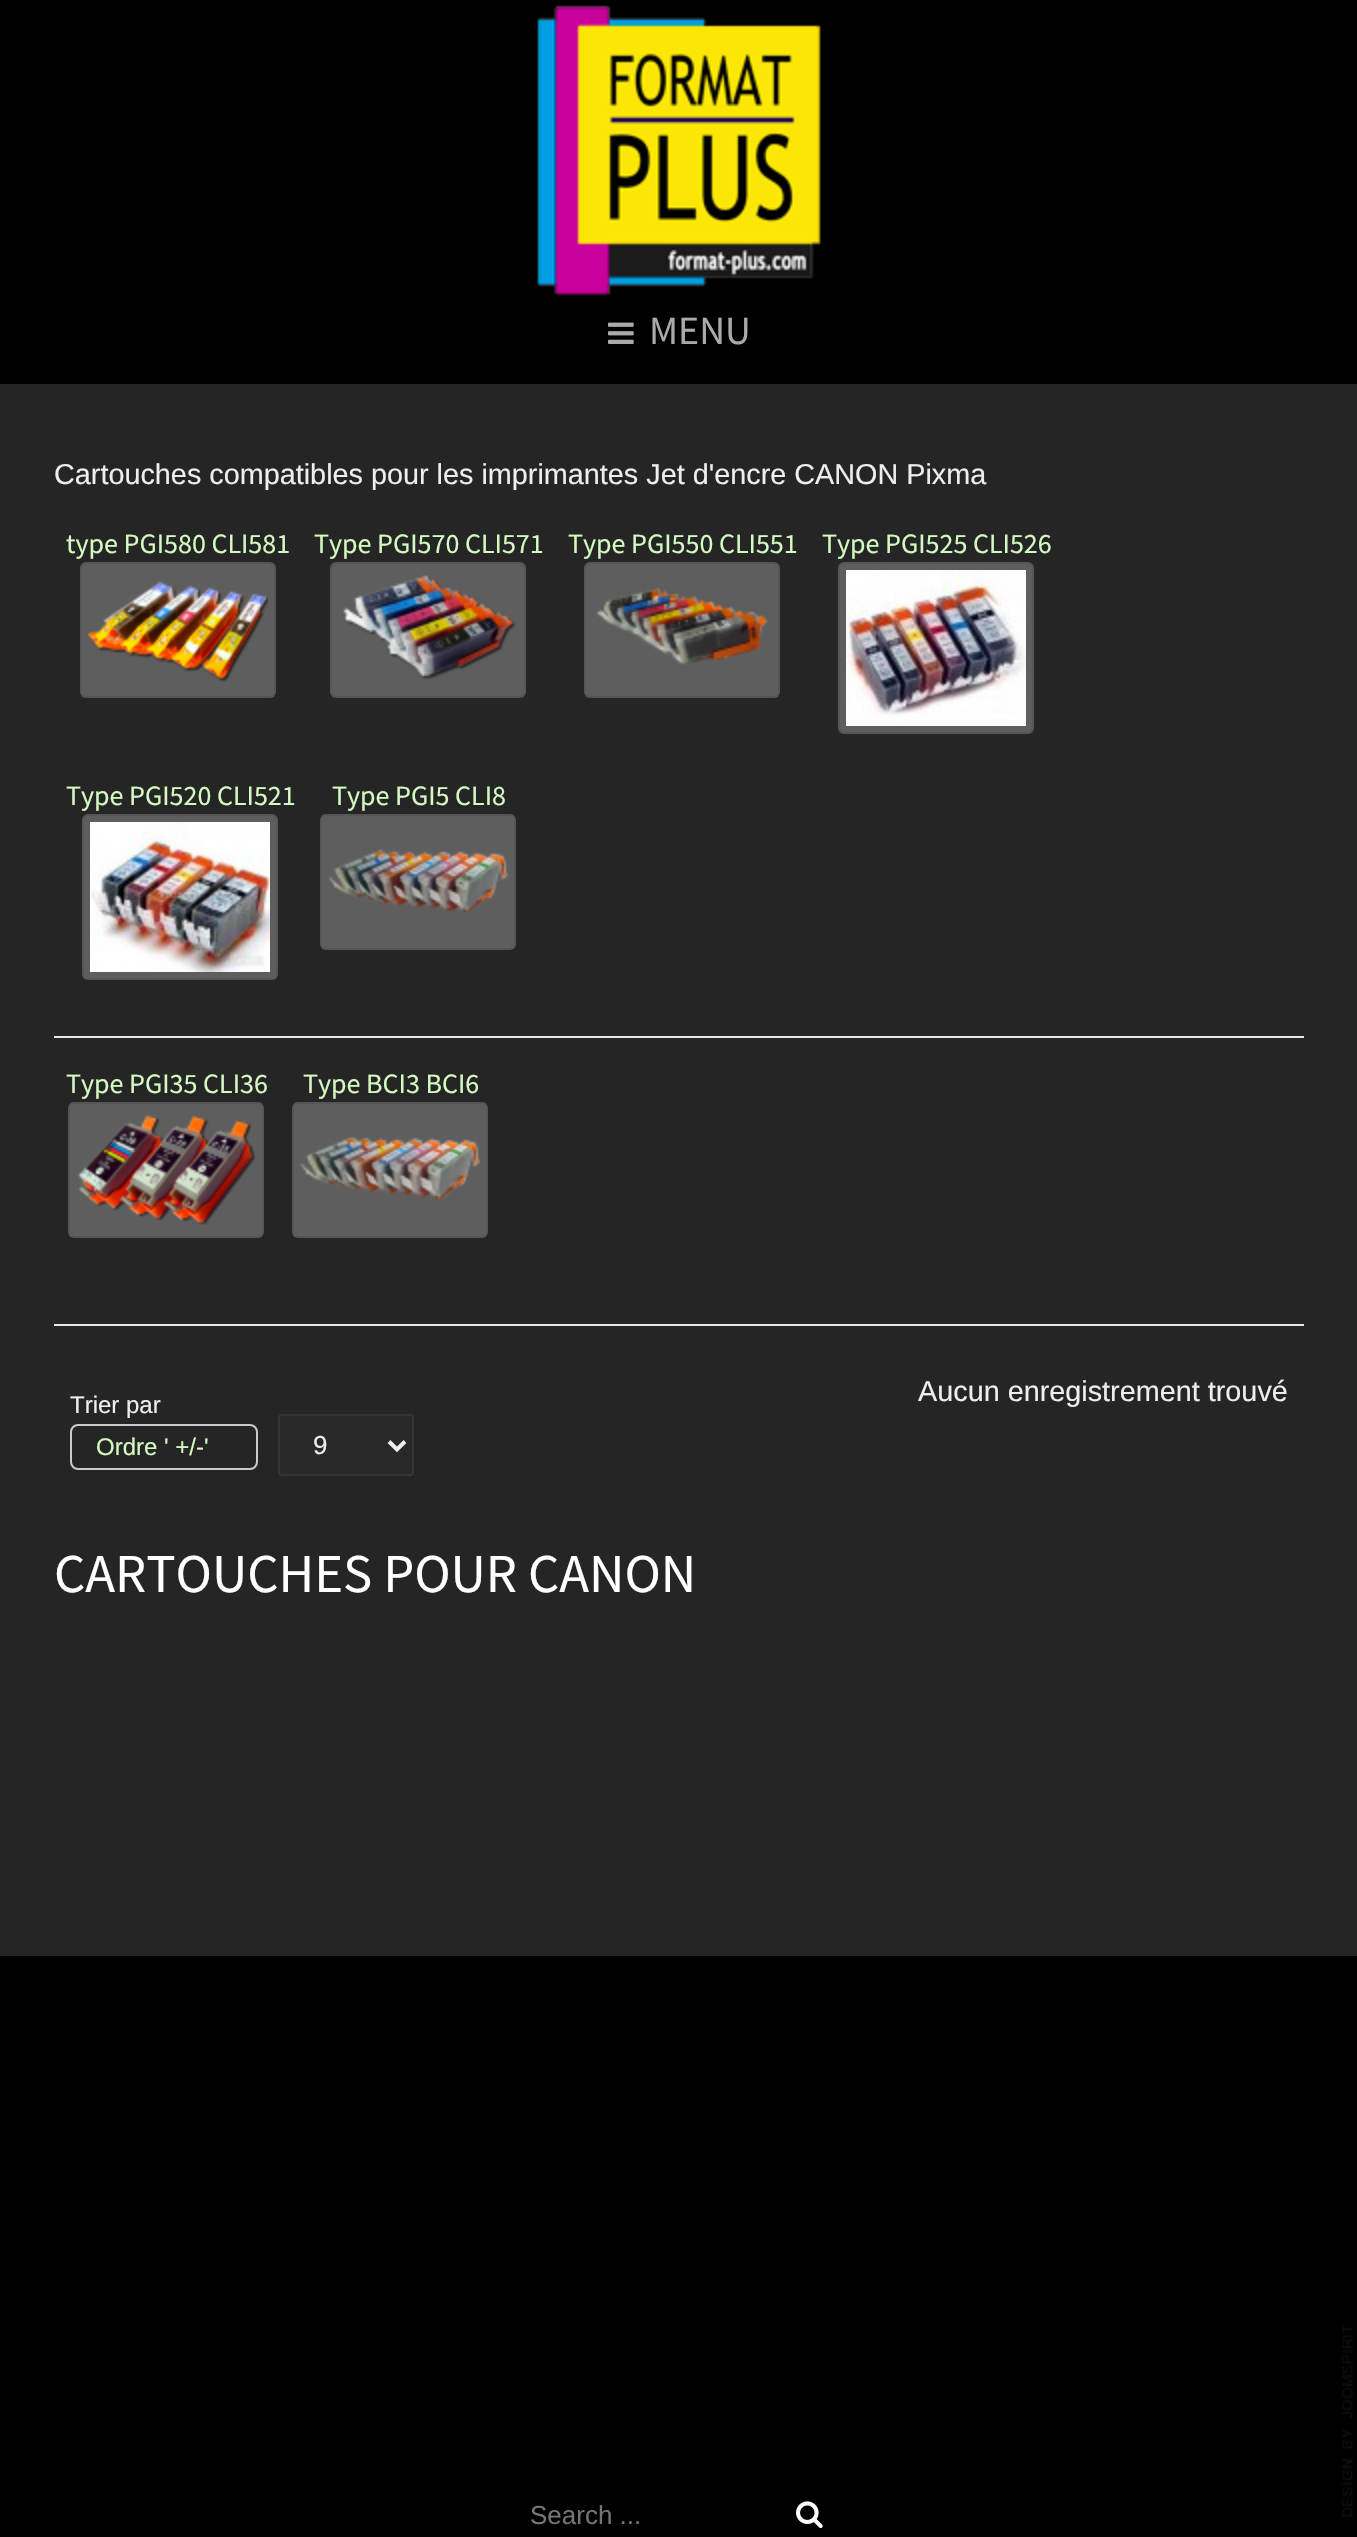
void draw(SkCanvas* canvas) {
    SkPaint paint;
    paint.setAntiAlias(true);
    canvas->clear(0xFF000000);
    canvas->drawImageRect(SkImages::DeferredFromEncodedData(SkData::MakeFromFileName("img1.png")), SkRect::MakeXYWH(537, 5, 284, 291), SkSamplingOptions());
    canvas->drawImageRect(SkImages::DeferredFromEncodedData(SkData::MakeFromFileName("img2.png")), SkRect::MakeXYWH(608, 322, 26, 22), SkSamplingOptions());
    SkFont font1(fontMgr->matchFamilyStyle("Source Sans Pro", SkFontStyle::Normal()), 40);
    font1.setSubpixel(true);
    paint.setColor(0xFFAAAAAA);
    canvas->drawString("MENU", 649, 344, font1, paint);
    paint.setColor(0xFF252525);
    canvas->drawRect(SkRect::MakeXYWH(0, 384, 1357, 1572), paint);
    SkFont font2(fontMgr->matchFamilyStyle("Liberation Sans", SkFontStyle::Normal()), 28.8f);
    font2.setSubpixel(true);
    paint.setColor(0xFFEEEEEE);
    canvas->drawString("Cartouches compatibles pour les imprimantes Jet d'encre CANON Pixma", 54, 484, font2, paint);
    SkFont font3(fontMgr->matchFamilyStyle("Source Sans Pro", SkFontStyle::Normal()), 28);
    font3.setSubpixel(true);
    paint.setColor(0xFFD3FAC0);
    canvas->drawString("type PGI580 CLI581", 66, 553, font3, paint);
    paint.setColor(0xFF5E5E5E);
    canvas->drawRoundRect(SkRect::MakeXYWH(80, 562, 196, 136), 6, 6, paint);
    paint.setStyle(SkPaint::kStroke_Style);
    paint.setStrokeWidth(2);
    paint.setColor(0x1A000000);
    canvas->drawRoundRect(SkRect::MakeXYWH(81, 563, 194, 134), 5, 5, paint);
    canvas->drawImageRect(SkImages::DeferredFromEncodedData(SkData::MakeFromFileName("img3.png")), SkRect::MakeXYWH(88, 581, 180, 101), SkSamplingOptions());
    paint.setStyle(SkPaint::kFill_Style);
    paint.setColor(0xFFD3FAC0);
    canvas->drawString("Type PGI570 CLI571", 314, 553, font3, paint);
    paint.setColor(0xFF5E5E5E);
    canvas->drawRoundRect(SkRect::MakeXYWH(330, 562, 196, 136), 6, 6, paint);
    paint.setStyle(SkPaint::kStroke_Style);
    paint.setColor(0x1A000000);
    canvas->drawRoundRect(SkRect::MakeXYWH(331, 563, 194, 134), 5, 5, paint);
    canvas->drawImageRect(SkImages::DeferredFromEncodedData(SkData::MakeFromFileName("img4.png")), SkRect::MakeXYWH(343, 575, 173, 105), SkSamplingOptions());
    paint.setStyle(SkPaint::kFill_Style);
    paint.setColor(0xFFD3FAC0);
    canvas->drawString("Type PGI550 CLI551", 568, 553, font3, paint);
    paint.setColor(0xFF5E5E5E);
    canvas->drawRoundRect(SkRect::MakeXYWH(584, 562, 196, 136), 6, 6, paint);
    paint.setStyle(SkPaint::kStroke_Style);
    paint.setColor(0x1A000000);
    canvas->drawRoundRect(SkRect::MakeXYWH(585, 563, 194, 134), 5, 5, paint);
    canvas->drawImageRect(SkImages::DeferredFromEncodedData(SkData::MakeFromFileName("img5.png")), SkRect::MakeXYWH(596, 587, 173, 78), SkSamplingOptions());
    paint.setStyle(SkPaint::kFill_Style);
    paint.setColor(0xFFD3FAC0);
    canvas->drawString("Type PGI525 CLI526", 822, 553, font3, paint);
    paint.setColor(0xFF5E5E5E);
    canvas->drawRoundRect(SkRect::MakeXYWH(838, 562, 196, 172), 6, 6, paint);
    paint.setStyle(SkPaint::kStroke_Style);
    paint.setColor(0x1A000000);
    canvas->drawRoundRect(SkRect::MakeXYWH(839, 563, 194, 170), 5, 5, paint);
    canvas->drawImageRect(SkImages::DeferredFromEncodedData(SkData::MakeFromFileName("img6.png")), SkRect::MakeXYWH(846, 570, 180, 156), SkSamplingOptions());
    paint.setStyle(SkPaint::kFill_Style);
    paint.setColor(0xFFD3FAC0);
    canvas->drawString("Type PGI520 CLI521", 66, 805, font3, paint);
    paint.setColor(0xFF5E5E5E);
    canvas->drawRoundRect(SkRect::MakeXYWH(82, 814, 196, 166), 6, 6, paint);
    paint.setStyle(SkPaint::kStroke_Style);
    paint.setColor(0x1A000000);
    canvas->drawRoundRect(SkRect::MakeXYWH(83, 815, 194, 164), 5, 5, paint);
    canvas->drawImageRect(SkImages::DeferredFromEncodedData(SkData::MakeFromFileName("img7.png")), SkRect::MakeXYWH(90, 822, 180, 150), SkSamplingOptions());
    paint.setStyle(SkPaint::kFill_Style);
    paint.setColor(0xFFD3FAC0);
    canvas->drawString("Type PGI5 CLI8", 332, 805, font3, paint);
    paint.setColor(0xFF5E5E5E);
    canvas->drawRoundRect(SkRect::MakeXYWH(320, 814, 196, 136), 6, 6, paint);
    paint.setStyle(SkPaint::kStroke_Style);
    paint.setColor(0x1A000000);
    canvas->drawRoundRect(SkRect::MakeXYWH(321, 815, 194, 134), 5, 5, paint);
    canvas->drawImageRect(SkImages::DeferredFromEncodedData(SkData::MakeFromFileName("img8.png")), SkRect::MakeXYWH(328, 849, 180, 65), SkSamplingOptions());
    paint.setStyle(SkPaint::kFill_Style);
    paint.setColor(0xFFE9E8E8);
    canvas->drawRect(SkRect::MakeXYWH(54, 1036, 1250, 2), paint);
    paint.setColor(0xFFD3FAC0);
    canvas->drawString("Type PGI35 CLI36", 66, 1093, font3, paint);
    paint.setColor(0xFF5E5E5E);
    canvas->drawRoundRect(SkRect::MakeXYWH(68, 1102, 196, 136), 6, 6, paint);
    paint.setStyle(SkPaint::kStroke_Style);
    paint.setColor(0x1A000000);
    canvas->drawRoundRect(SkRect::MakeXYWH(69, 1103, 194, 134), 5, 5, paint);
    canvas->drawImageRect(SkImages::DeferredFromEncodedData(SkData::MakeFromFileName("img9.png")), SkRect::MakeXYWH(77, 1115, 179, 110), SkSamplingOptions());
    paint.setStyle(SkPaint::kFill_Style);
    paint.setColor(0xFFD3FAC0);
    canvas->drawString("Type BCI3 BCI6", 303, 1093, font3, paint);
    paint.setColor(0xFF5E5E5E);
    canvas->drawRoundRect(SkRect::MakeXYWH(292, 1102, 196, 136), 6, 6, paint);
    paint.setStyle(SkPaint::kStroke_Style);
    paint.setColor(0x1A000000);
    canvas->drawRoundRect(SkRect::MakeXYWH(293, 1103, 194, 134), 5, 5, paint);
    canvas->drawImageRect(SkImages::DeferredFromEncodedData(SkData::MakeFromFileName("img10.png")), SkRect::MakeXYWH(300, 1136, 180, 66), SkSamplingOptions());
    paint.setStyle(SkPaint::kFill_Style);
    paint.setColor(0xFFE9E8E8);
    canvas->drawRect(SkRect::MakeXYWH(54, 1324, 1250, 2), paint);
    SkFont font4(fontMgr->matchFamilyStyle("Liberation Sans", SkFontStyle::Normal()), 24);
    font4.setSubpixel(true);
    paint.setColor(0xFFEEEEEE);
    canvas->drawString("Trier par", 70, 1413, font4, paint);
    paint.setStyle(SkPaint::kStroke_Style);
    paint.setColor(0xFFCAC9C9);
    canvas->drawRoundRect(SkRect::MakeXYWH(71, 1425, 186, 44), 7, 7, paint);
    paint.setStyle(SkPaint::kFill_Style);
    paint.setColor(0xFFD3FAC0);
    canvas->drawString("Ordre ' +/-'", 96, 1455, font4, paint);
    paint.setColor(0xFFEEEEEE);
    canvas->drawString("Aucun enregistrement trouvé", 918, 1401, font2, paint);
    paint.setColor(0xFF292929);
    canvas->drawRoundRect(SkRect::MakeXYWH(279, 1415, 134, 60), 3, 3, paint);
    paint.setStyle(SkPaint::kStroke_Style);
    paint.setColor(0xFF353535);
    canvas->drawRoundRect(SkRect::MakeXYWH(279, 1415, 134, 60), 3, 3, paint);
    paint.setStrokeWidth(4);
    paint.setColor(0xFFEEEEEE);
    canvas->drawPath(SkPathBuilder().moveTo(389, 1441.5f).lineTo(397, 1449.5f).lineTo(405, 1441.5f).detach(), paint);
    SkFont font5(fontMgr->matchFamilyStyle("Liberation Sans", SkFontStyle::Normal()), 26);
    font5.setSubpixel(true);
    paint.setStyle(SkPaint::kFill_Style);
    canvas->drawString("9", 313, 1454, font5, paint);
    SkFont font6(fontMgr->matchFamilyStyle("Source Sans Pro", SkFontStyle::Normal()), 54.75f);
    font6.setSubpixel(true);
    paint.setColor(0xFFFFFFFF);
    canvas->drawString("CARTOUCHES POUR CANON", 54, 1592, font6, paint);
    paint.setColor(0xFF757575);
    canvas->drawString("Search ...", 530, 2524, font5, paint);
    canvas->drawImageRect(SkImages::DeferredFromEncodedData(SkData::MakeFromFileName("img11.png")), SkRect::MakeXYWH(796, 2501, 27, 28), SkSamplingOptions());
    canvas->drawImageRect(SkImages::DeferredFromEncodedData(SkData::MakeFromFileName("img12.png")), SkRect::MakeXYWH(1342, 2324, 11, 193), SkSamplingOptions());
}
